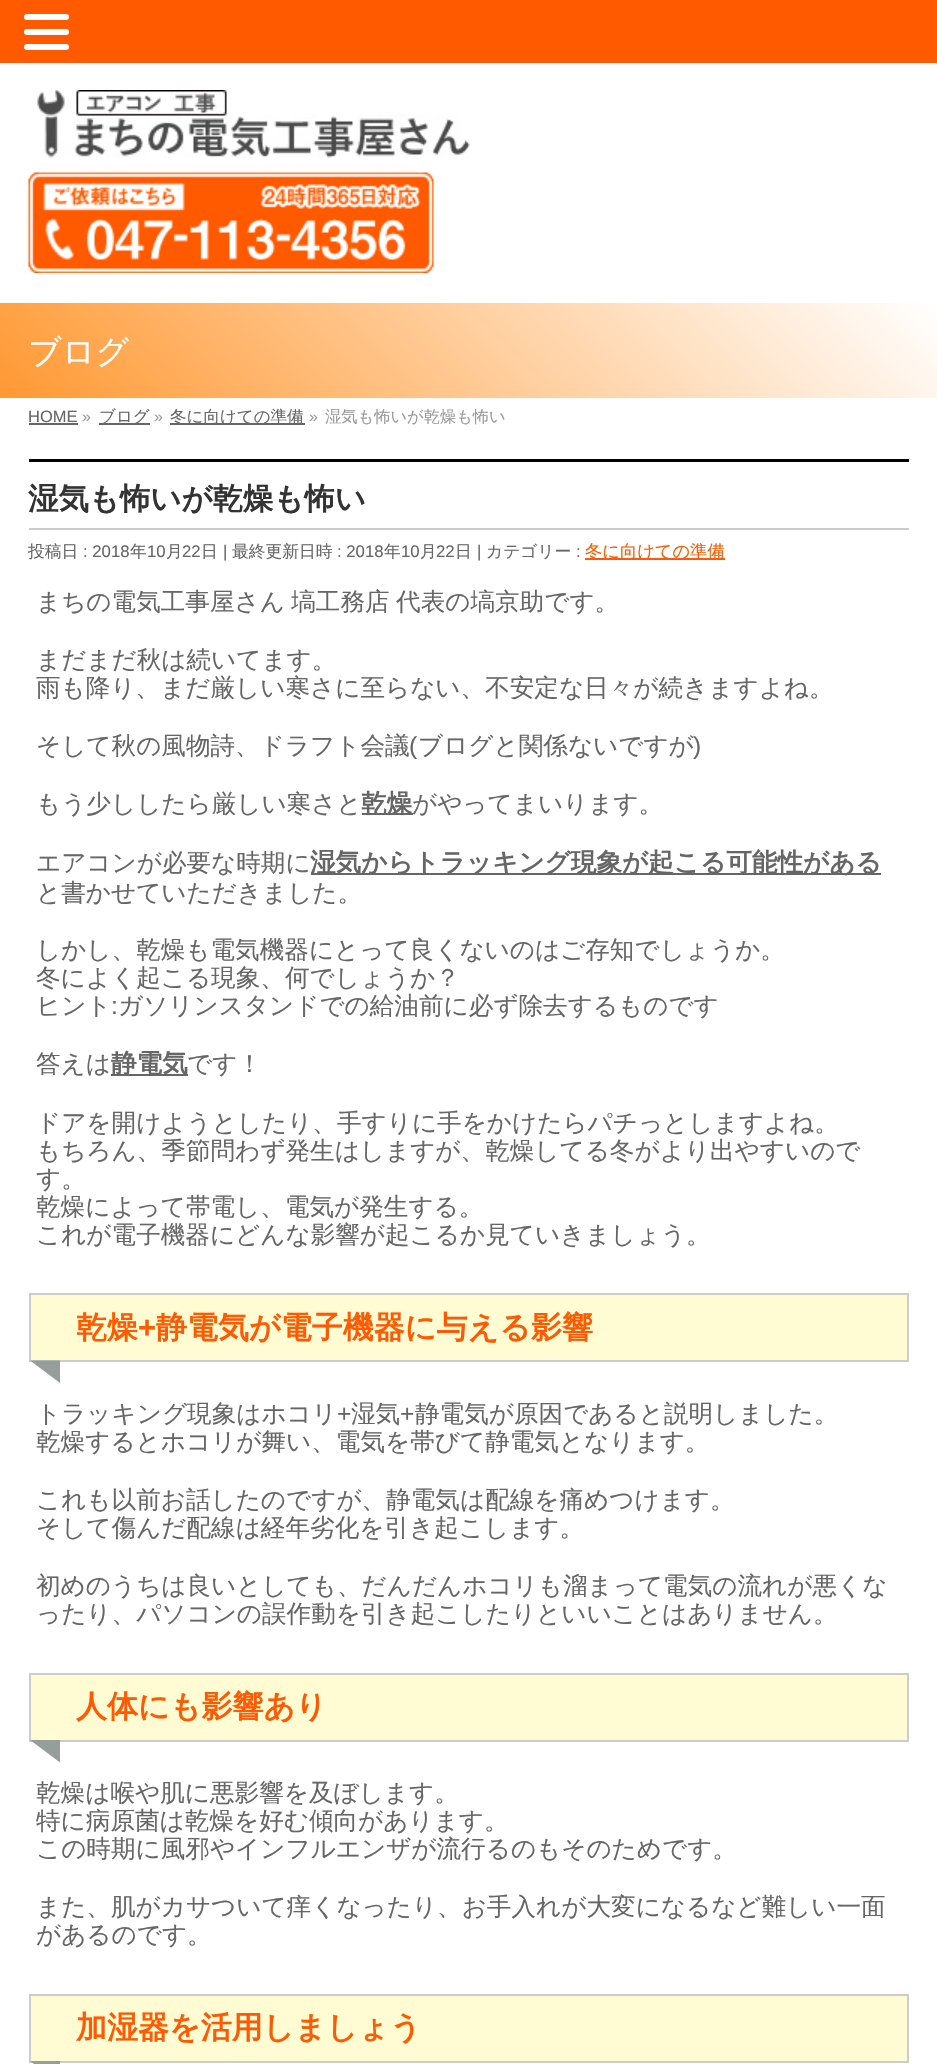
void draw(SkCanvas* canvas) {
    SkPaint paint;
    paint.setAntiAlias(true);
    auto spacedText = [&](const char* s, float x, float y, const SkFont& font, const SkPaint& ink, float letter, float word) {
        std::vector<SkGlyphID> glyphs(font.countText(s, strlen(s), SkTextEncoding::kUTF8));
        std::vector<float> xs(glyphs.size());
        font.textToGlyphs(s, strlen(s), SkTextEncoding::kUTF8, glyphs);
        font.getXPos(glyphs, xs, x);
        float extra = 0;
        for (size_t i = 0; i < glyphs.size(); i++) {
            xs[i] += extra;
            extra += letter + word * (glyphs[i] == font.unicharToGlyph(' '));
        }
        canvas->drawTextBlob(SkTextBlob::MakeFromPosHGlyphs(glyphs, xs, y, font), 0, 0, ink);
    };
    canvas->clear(0xFFFFFFFF);
    paint.setColor(0xFFFF5A00);
    canvas->drawRect(SkRect::MakeXYWH(0, 0, 937, 63), paint);
    paint.setColor(0xFFFFFFFF);
    canvas->drawRoundRect(SkRect::MakeXYWH(24, 14, 45, 6), 3, 3, paint);
    canvas->drawRoundRect(SkRect::MakeXYWH(24, 29, 45, 6), 3, 3, paint);
    canvas->drawRoundRect(SkRect::MakeXYWH(24, 44, 45, 6), 3, 3, paint);
    canvas->drawImageRect(SkImages::DeferredFromEncodedData(SkData::MakeFromFileName("img1.png")), SkRect::MakeXYWH(37, 90, 434, 68), SkSamplingOptions());
    canvas->drawImageRect(SkImages::DeferredFromEncodedData(SkData::MakeFromFileName("img2.png")), SkRect::MakeXYWH(28, 172, 406, 101), SkSamplingOptions());
    {
        const SkColor colors[] = {0xFFFFFFFF, 0xFFFF9933};
        const float stops[] = {0, 1};
        const SkPoint ends[] = {{727, 92}, {211, 608}};
        paint.setShader(SkGradientShader::MakeLinear(ends, colors, stops, 2, SkTileMode::kClamp));
        paint.setAlpha(255);
    }
    canvas->drawRect(SkRect::MakeXYWH(0, 303, 937, 95), paint);
    SkFont font1(fontMgr->matchFamilyStyle("WenQuanYi Zen Hei", SkFontStyle(500, SkFontStyle::kNormal_Width, SkFontStyle::kUpright_Slant)), 33);
    font1.setSubpixel(true);
    paint.setShader(nullptr);
    paint.setColor(0xFFFFFFFF);
    canvas->drawString("ブログ", 28, 363, font1, paint);
    SkFont font2(fontMgr->matchFamilyStyle("Liberation Sans", SkFontStyle::Normal()), 16.5f);
    font2.setSubpixel(true);
    paint.setColor(0xFF666666);
    canvas->drawString("HOME", 28, 422, font2, paint);
    canvas->drawRect(SkRect::MakeXYWH(29, 423, 49, 2), paint);
    SkFont font3(fontMgr->matchFamilyStyle("Liberation Sans", SkFontStyle::Normal()), 16);
    font3.setSubpixel(true);
    paint.setColor(0xFF999999);
    canvas->drawString("»", 82, 422, font3, paint);
    paint.setColor(0xFF666666);
    canvas->drawRect(SkRect::MakeXYWH(99, 423, 51, 2), paint);
    SkFont font4(fontMgr->matchFamilyStyle("WenQuanYi Zen Hei", SkFontStyle(500, SkFontStyle::kNormal_Width, SkFontStyle::kUpright_Slant)), 16.5f);
    font4.setSubpixel(true);
    canvas->drawString("ブログ", 99, 422, font4, paint);
    paint.setColor(0xFF999999);
    canvas->drawString("»", 154, 422, font3, paint);
    paint.setColor(0xFF666666);
    canvas->drawRect(SkRect::MakeXYWH(170, 423, 135, 2), paint);
    canvas->drawString("冬に向けての準備", 170, 422, font4, paint);
    paint.setColor(0xFF999999);
    canvas->drawString("»", 309, 422, font3, paint);
    SkFont font5(fontMgr->matchFamilyStyle("WenQuanYi Zen Hei", SkFontStyle(500, SkFontStyle::kNormal_Width, SkFontStyle::kUpright_Slant)), 16.25f);
    font5.setSubpixel(true);
    canvas->drawString("湿気も怖いが乾燥も怖い", 325, 422, font5, paint);
    paint.setColor(0xFF000000);
    canvas->drawRect(SkRect::MakeXYWH(29, 459, 880, 3), paint);
    paint.setColor(0xFFCCCCCC);
    canvas->drawRect(SkRect::MakeXYWH(29, 528, 880, 2), paint);
    SkFont font6(fontMgr->matchFamilyStyle("WenQuanYi Zen Hei", SkFontStyle::Bold()), 30.4f);
    font6.setSubpixel(true);
    paint.setColor(0xFF333333);
    canvas->drawString("湿気も怖いが乾燥も怖い", 28, 509, font6, paint);
    SkFont font7(fontMgr->matchFamilyStyle("WenQuanYi Zen Hei", SkFontStyle(500, SkFontStyle::kNormal_Width, SkFontStyle::kUpright_Slant)), 16.75f);
    font7.setSubpixel(true);
    paint.setColor(0xFF666666);
    canvas->drawString("投稿日", 28, 557, font7, paint);
    SkFont font8(fontMgr->matchFamilyStyle("Liberation Sans", SkFontStyle::Normal()), 16.75f);
    font8.setSubpixel(true);
    canvas->drawString(": 2018", 83, 557, font8, paint);
    canvas->drawString("年", 130, 557, font7, paint);
    canvas->drawString("10", 147, 557, font8, paint);
    canvas->drawString("月", 166, 557, font7, paint);
    canvas->drawString("22", 182, 557, font8, paint);
    canvas->drawString("日", 201, 557, font7, paint);
    canvas->drawString("|", 223, 557, font8, paint);
    canvas->drawString("最終更新日時", 232, 557, font7, paint);
    canvas->drawString(": 2018", 337, 557, font8, paint);
    canvas->drawString("年", 384, 557, font7, paint);
    canvas->drawString("10", 401, 557, font8, paint);
    canvas->drawString("月", 420, 557, font7, paint);
    canvas->drawString("22", 436, 557, font8, paint);
    canvas->drawString("日", 455, 557, font7, paint);
    canvas->drawString("|", 477, 557, font8, paint);
    canvas->drawString("カテゴリー", 486, 557, font7, paint);
    canvas->drawString(":", 576, 557, font8, paint);
    paint.setColor(0xFFFF5A00);
    canvas->drawRect(SkRect::MakeXYWH(585, 558, 140, 2), paint);
    SkFont font9(fontMgr->matchFamilyStyle("WenQuanYi Zen Hei", SkFontStyle(500, SkFontStyle::kNormal_Width, SkFontStyle::kUpright_Slant)), 17.25f);
    font9.setSubpixel(true);
    canvas->drawString("冬に向けての準備", 585, 557, font9, paint);
    SkFont font10(fontMgr->matchFamilyStyle("WenQuanYi Zen Hei", SkFontStyle(500, SkFontStyle::kNormal_Width, SkFontStyle::kUpright_Slant)), 24.6f);
    font10.setSubpixel(true);
    paint.setColor(0xFF666666);
    spacedText("まちの電気工事屋さん 塙工務店 代表の塙京助です。", 36, 610, font10, paint, 0, -1);
    canvas->drawString("まだまだ秋は続いてます。", 36, 668, font10, paint);
    canvas->drawString("雨も降り、まだ厳しい寒さに至らない、不安定な日々が続きますよね。", 36, 696, font10, paint);
    canvas->drawString("そして秋の風物詩、ドラフト会議", 36, 754, font10, paint);
    SkFont font11(fontMgr->matchFamilyStyle("Liberation Sans", SkFontStyle::Normal()), 24.6f);
    font11.setSubpixel(true);
    canvas->drawString("(", 409, 754, font11, paint);
    canvas->drawString("ブログと関係ないですが", 418, 754, font10, paint);
    canvas->drawString(")", 693, 754, font11, paint);
    canvas->drawString("もう少ししたら厳しい寒さと", 36, 812, font10, paint);
    canvas->drawRect(SkRect::MakeXYWH(362, 813, 51, 2), paint);
    SkFont font12(fontMgr->matchFamilyStyle("WenQuanYi Zen Hei", SkFontStyle::Bold()), 25.6f);
    font12.setSubpixel(true);
    canvas->drawString("乾燥", 361, 812, font12, paint);
    canvas->drawString("がやってまいります。", 412, 812, font10, paint);
    canvas->drawString("エアコンが必要な時期に", 36, 871, font10, paint);
    canvas->drawRect(SkRect::MakeXYWH(311, 873, 570, 2), paint);
    canvas->drawString("湿気からトラッキング現象が起こる可能性がある", 310, 871, font12, paint);
    canvas->drawString("と書かせていただきました。", 36, 901, font10, paint);
    canvas->drawString("しかし、乾燥も電気機器にとって良くないのはご存知でしょうか。", 36, 958, font10, paint);
    canvas->drawString("冬によく起こる現象、何でしょうか？", 36, 986, font10, paint);
    canvas->drawString("ヒント", 36, 1014, font10, paint);
    canvas->drawString(":", 111, 1014, font11, paint);
    canvas->drawString("ガソリンスタンドでの給油前に必ず除去するものです", 118, 1014, font10, paint);
    canvas->drawString("答えは", 36, 1072, font10, paint);
    canvas->drawRect(SkRect::MakeXYWH(111, 1074, 77, 2), paint);
    canvas->drawString("静電気", 111, 1072, font12, paint);
    canvas->drawString("です！", 187, 1072, font10, paint);
    canvas->drawString("ドアを開けようとしたり、手すりに手をかけたらパチっとしますよね。", 36, 1131, font10, paint);
    canvas->drawString("もちろん、季節問わず発生はしますが、乾燥してる冬がより出やすいので", 36, 1159, font10, paint);
    canvas->drawString("す。", 36, 1187, font10, paint);
    canvas->drawString("乾燥によって帯電し、電気が発生する。", 36, 1215, font10, paint);
    canvas->drawString("これが電子機器にどんな影響が起こるか見ていきましょう。", 36, 1243, font10, paint);
    paint.setColor(0xFFFFFBD3);
    canvas->drawRect(SkRect::MakeXYWH(30, 1294, 878, 67), paint);
    paint.setStyle(SkPaint::kStroke_Style);
    paint.setStrokeWidth(2);
    paint.setColor(0xFFCCCCCC);
    canvas->drawRect(SkRect::MakeXYWH(30, 1294, 878, 67), paint);
    SkFont font13(fontMgr->matchFamilyStyle("WenQuanYi Zen Hei", SkFontStyle::Bold()), 31);
    font13.setSubpixel(true);
    paint.setStyle(SkPaint::kFill_Style);
    paint.setColor(0xFFFF5A00);
    canvas->drawString("乾燥", 76, 1338, font13, paint);
    SkFont font14(fontMgr->matchFamilyStyle("Liberation Sans", SkFontStyle::Bold()), 31);
    font14.setSubpixel(true);
    canvas->drawString("+", 138, 1338, font14, paint);
    canvas->drawString("静電気が電子機器に与える影響", 156, 1338, font13, paint);
    paint.setColor(0xFF959E9B);
    canvas->drawPath(SkPathBuilder().moveTo(60, 1360.5f).lineTo(60, 1383).lineTo(30, 1360.5f).close().detach(), paint);
    paint.setColor(0xFF666666);
    canvas->drawString("トラッキング現象はホコリ", 36, 1422, font10, paint);
    canvas->drawString("+", 337, 1422, font11, paint);
    canvas->drawString("湿気", 351, 1422, font10, paint);
    canvas->drawString("+", 400, 1422, font11, paint);
    canvas->drawString("静電気が原因であると説明しました。", 415, 1422, font10, paint);
    canvas->drawString("乾燥するとホコリが舞い、電気を帯びて静電気となります。", 36, 1450, font10, paint);
    canvas->drawString("これも以前お話したのですが、静電気は配線を痛めつけます。", 36, 1508, font10, paint);
    canvas->drawString("そして傷んだ配線は経年劣化を引き起こします。", 36, 1536, font10, paint);
    canvas->drawString("初めのうちは良いとしても、だんだんホコリも溜まって電気の流れが悪くな", 36, 1594, font10, paint);
    canvas->drawString("ったり、パソコンの誤作動を引き起こしたりといいことはありません。", 36, 1622, font10, paint);
    paint.setColor(0xFFFFFBD3);
    canvas->drawRect(SkRect::MakeXYWH(30, 1674, 878, 67), paint);
    paint.setStyle(SkPaint::kStroke_Style);
    paint.setColor(0xFFCCCCCC);
    canvas->drawRect(SkRect::MakeXYWH(30, 1674, 878, 67), paint);
    paint.setStyle(SkPaint::kFill_Style);
    paint.setColor(0xFFFF5A00);
    canvas->drawString("人体にも影響あり", 76, 1717, font13, paint);
    paint.setColor(0xFF959E9B);
    canvas->drawPath(SkPathBuilder().moveTo(60, 1740).lineTo(60, 1762.5f).lineTo(30, 1740).close().detach(), paint);
    paint.setColor(0xFF666666);
    canvas->drawString("乾燥は喉や肌に悪影響を及ぼします。", 36, 1801, font10, paint);
    canvas->drawString("特に病原菌は乾燥を好む傾向があります。", 36, 1829, font10, paint);
    canvas->drawString("この時期に風邪やインフルエンザが流行るのもそのためです。", 36, 1857, font10, paint);
    canvas->drawString("また、肌がカサついて痒くなったり、お手入れが大変になるなど難しい一面", 36, 1915, font10, paint);
    canvas->drawString("があるのです。", 36, 1943, font10, paint);
    paint.setColor(0xFFFFFBD3);
    canvas->drawRect(SkRect::MakeXYWH(30, 1995, 878, 67), paint);
    paint.setStyle(SkPaint::kStroke_Style);
    paint.setColor(0xFFCCCCCC);
    canvas->drawRect(SkRect::MakeXYWH(30, 1995, 878, 67), paint);
    paint.setStyle(SkPaint::kFill_Style);
    paint.setColor(0xFFFF5A00);
    canvas->drawString("加湿器を活用しましょう", 76, 2038, font13, paint);
    paint.setColor(0xFF959E9B);
    canvas->drawPath(SkPathBuilder().moveTo(60, 2061).lineTo(60, 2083.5f).lineTo(30, 2061).close().detach(), paint);
}
